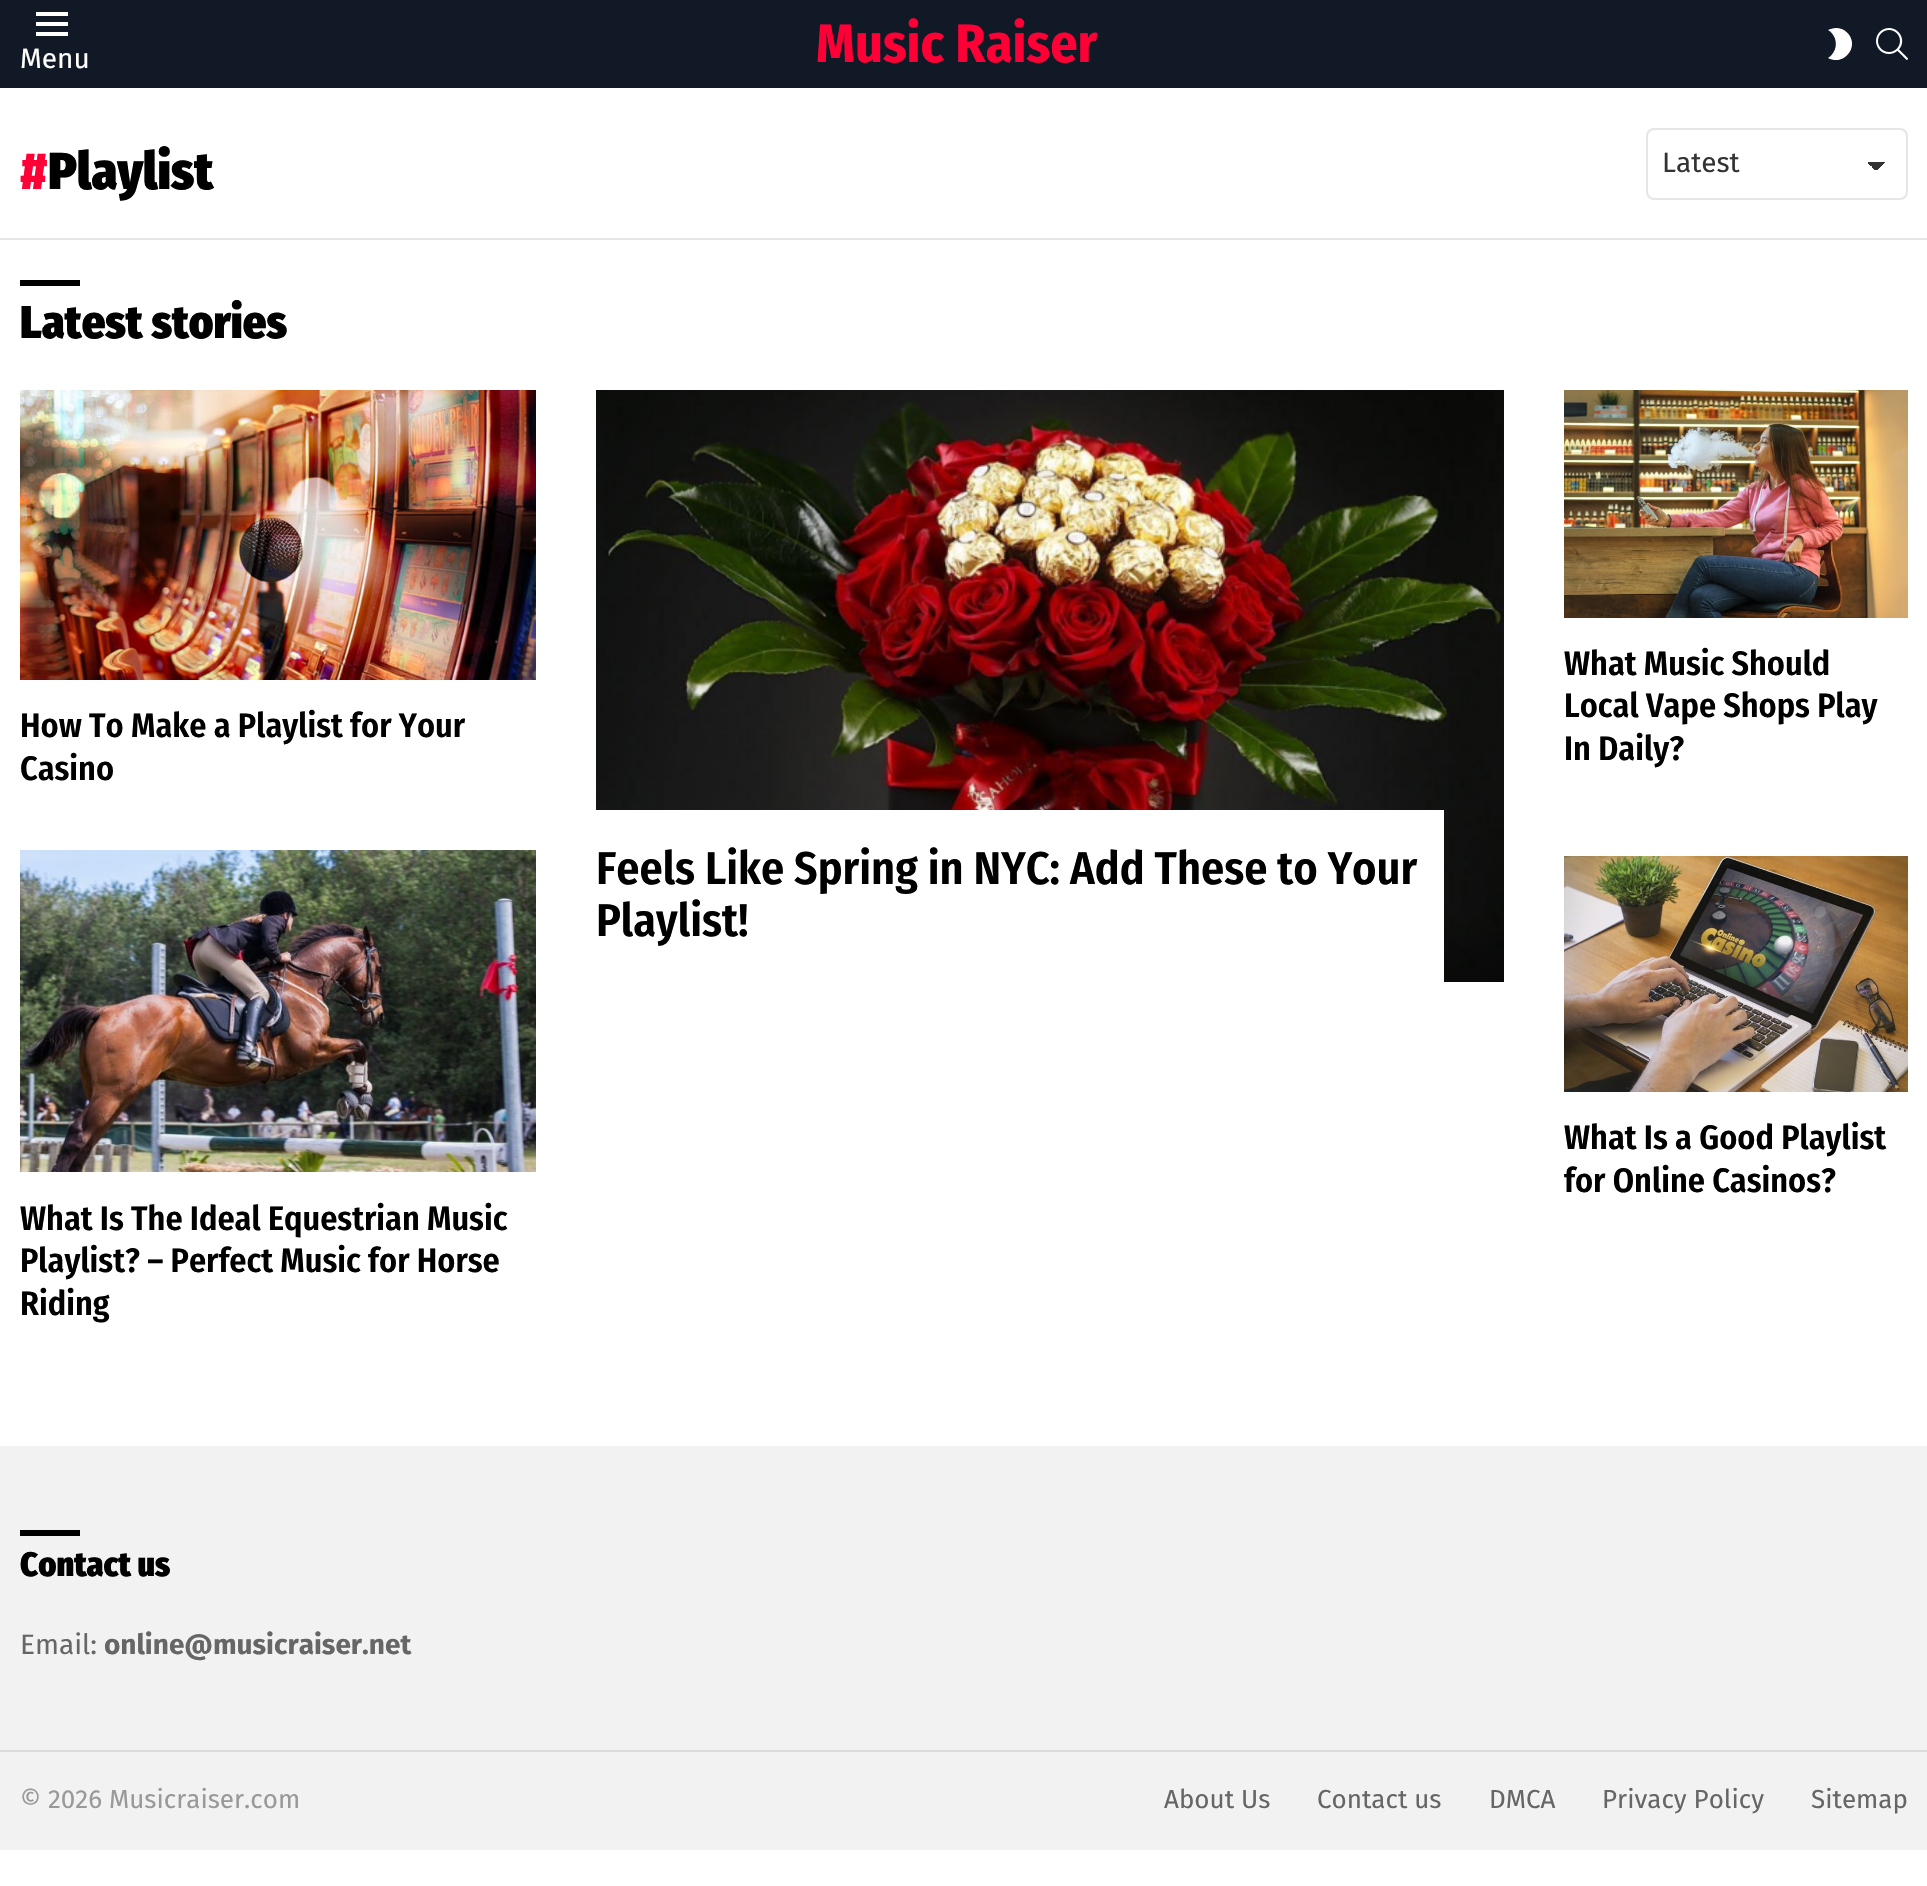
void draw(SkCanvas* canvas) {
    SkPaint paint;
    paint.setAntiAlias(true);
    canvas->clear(0xFFFFFFFF);
    paint.setColor(0xFF101925);
    canvas->drawRect(SkRect::MakeXYWH(0, 0, 1927, 88), paint);
    canvas->drawImageRect(SkImages::DeferredFromEncodedData(SkData::MakeFromFileName("img1.png")), SkRect::MakeXYWH(36, 12, 32, 24), SkSamplingOptions());
    SkFont font1(fontMgr->matchFamilyStyle("Fira Sans", SkFontStyle::Normal()), 28);
    font1.setSubpixel(true);
    paint.setColor(0xFFFFFFFF);
    canvas->drawString("Menu", 20, 68, font1, paint);
    SkFont font2(fontMgr->matchFamilyStyle("Fira Sans Condensed", SkFontStyle::Bold()), 54);
    font2.setSubpixel(true);
    paint.setColor(0xFFFF0036);
    canvas->drawString("Music Raiser", 816, 62, font2, paint);
    paint.setColor(0xFFFFFFFF);
    canvas->drawPath(SkPathBuilder().moveTo(1836, 28).cubicTo(1833, 28, 1830.5f, 29, 1828, 30).cubicTo(1838.5f, 36.5f, 1838.5f, 51.5f, 1828, 58).cubicTo(1844.5f, 67, 1861, 45, 1846.5f, 32).cubicTo(1844, 29.5f, 1840, 28, 1836, 28).close().detach(), paint);
    canvas->drawImageRect(SkImages::DeferredFromEncodedData(SkData::MakeFromFileName("img2.png")), SkRect::MakeXYWH(1876, 28, 32, 32), SkSamplingOptions());
    SkFont font3(fontMgr->matchFamilyStyle("Fira Sans Condensed", SkFontStyle(900, SkFontStyle::kNormal_Width, SkFontStyle::kUpright_Slant)), 52);
    font3.setSubpixel(true);
    paint.setColor(0xFFFF0036);
    canvas->drawString("#", 20, 189, font3, paint);
    paint.setColor(0xFF000000);
    canvas->drawString("Playlist", 48, 189, font3, paint);
    {
        const SkColor colors[] = {0xFF333333, 0xFFFFFFFF};
        const float stops[] = {0.5f, 0.5f};
        const SkPoint ends[] = {{1877, 162}, {1886, 171}};
        paint.setShader(SkGradientShader::MakeLinear(ends, colors, stops, 2, SkTileMode::kClamp));
        paint.setAlpha(255);
    }
    canvas->drawRect(SkRect::MakeXYWH(1876, 162, 10, 8), paint);
    {
        const SkColor colors[] = {0xFFFFFFFF, 0xFF333333};
        const float stops[] = {0.5f, 0.5f};
        const SkPoint ends[] = {{1867, 171}, {1876, 162}};
        paint.setShader(SkGradientShader::MakeLinear(ends, colors, stops, 2, SkTileMode::kClamp));
        paint.setAlpha(255);
    }
    canvas->drawRect(SkRect::MakeXYWH(1866, 162, 10, 8), paint);
    paint.setStyle(SkPaint::kStroke_Style);
    paint.setStrokeWidth(2);
    paint.setShader(nullptr);
    paint.setColor(0xFFE6E6E6);
    canvas->drawRoundRect(SkRect::MakeXYWH(1647, 129, 260, 70), 7, 7, paint);
    paint.setStyle(SkPaint::kFill_Style);
    paint.setColor(0xFF333333);
    canvas->drawString("Latest", 1662, 172, font1, paint);
    paint.setColor(0xFFE6E6E6);
    canvas->drawRect(SkRect::MakeXYWH(0, 238, 1927, 2), paint);
    paint.setColor(0xFF000000);
    canvas->drawRect(SkRect::MakeXYWH(20, 280, 60, 6), paint);
    SkFont font4(fontMgr->matchFamilyStyle("Fira Sans Condensed", SkFontStyle(900, SkFontStyle::kNormal_Width, SkFontStyle::kUpright_Slant)), 46);
    font4.setSubpixel(true);
    canvas->drawString("Latest stories", 20, 338, font4, paint);
    canvas->drawImageRect(SkImages::DeferredFromEncodedData(SkData::MakeFromFileName("img3.png")), SkRect::MakeXYWH(20, 390, 516, 290), SkSamplingOptions());
    SkFont font5(fontMgr->matchFamilyStyle("Fira Sans Condensed", SkFontStyle(600, SkFontStyle::kNormal_Width, SkFontStyle::kUpright_Slant)), 34);
    font5.setSubpixel(true);
    canvas->drawString("How To Make a Playlist for Your", 20, 737, font5, paint);
    canvas->drawString("Casino", 20, 780, font5, paint);
    canvas->drawImageRect(SkImages::DeferredFromEncodedData(SkData::MakeFromFileName("img4.png")), SkRect::MakeXYWH(20, 850, 516, 322), SkSamplingOptions());
    canvas->drawString("What Is The Ideal Equestrian Music", 20, 1230, font5, paint);
    canvas->drawString("Playlist? – Perfect Music for Horse", 20, 1272, font5, paint);
    canvas->drawString("Riding", 20, 1315, font5, paint);
    canvas->drawImageRect(SkImages::DeferredFromEncodedData(SkData::MakeFromFileName("img5.png")), SkRect::MakeXYWH(596, 390, 908, 592), SkSamplingOptions());
    paint.setColor(0xFFFFFFFF);
    canvas->drawRect(SkRect::MakeXYWH(596, 810, 848, 172), paint);
    SkFont font6(fontMgr->matchFamilyStyle("Fira Sans Condensed", SkFontStyle(600, SkFontStyle::kNormal_Width, SkFontStyle::kUpright_Slant)), 46);
    font6.setSubpixel(true);
    paint.setColor(0xFF000000);
    canvas->drawString("Feels Like Spring in NYC: Add These to Your", 596, 884, font6, paint);
    canvas->drawString("Playlist!", 596, 936, font6, paint);
    canvas->drawImageRect(SkImages::DeferredFromEncodedData(SkData::MakeFromFileName("img6.png")), SkRect::MakeXYWH(1564, 390, 344, 228), SkSamplingOptions());
    canvas->drawString("What Music Should", 1564, 675, font5, paint);
    canvas->drawString("Local Vape Shops Play", 1564, 717, font5, paint);
    canvas->drawString("In Daily?", 1564, 760, font5, paint);
    canvas->drawImageRect(SkImages::DeferredFromEncodedData(SkData::MakeFromFileName("img7.png")), SkRect::MakeXYWH(1564, 856, 344, 236), SkSamplingOptions());
    canvas->drawString("What Is a Good Playlist", 1564, 1149, font5, paint);
    canvas->drawString("for Online Casinos?", 1564, 1192, font5, paint);
    paint.setColor(0xFFF2F2F2);
    canvas->drawRect(SkRect::MakeXYWH(0, 1446, 1927, 304), paint);
    paint.setColor(0xFF000000);
    canvas->drawRect(SkRect::MakeXYWH(20, 1530, 60, 6), paint);
    SkFont font7(fontMgr->matchFamilyStyle("Fira Sans Condensed", SkFontStyle(900, SkFontStyle::kNormal_Width, SkFontStyle::kUpright_Slant)), 34);
    font7.setSubpixel(true);
    canvas->drawString("Contact us", 20, 1576, font7, paint);
    paint.setColor(0xFF666666);
    canvas->drawString("Email:", 20, 1654, font1, paint);
    SkFont font8(fontMgr->matchFamilyStyle("Fira Sans", SkFontStyle::Bold()), 28);
    font8.setSubpixel(true);
    canvas->drawString("online@musicraiser.net", 104, 1654, font8, paint);
    paint.setColor(0xFFDBDBDB);
    canvas->drawRect(SkRect::MakeXYWH(0, 1750, 1927, 2), paint);
    paint.setColor(0xFFF2F2F2);
    canvas->drawRect(SkRect::MakeXYWH(0, 1752, 1927, 98), paint);
    SkFont font9(fontMgr->matchFamilyStyle("Fira Sans", SkFontStyle::Normal()), 26);
    font9.setSubpixel(true);
    paint.setColor(0xFF999999);
    canvas->drawString("© 2026 Musicraiser.com", 20, 1808, font9, paint);
    paint.setColor(0xFF666666);
    canvas->drawString("About Us", 1164, 1808, font9, paint);
    canvas->drawString("Contact us", 1317, 1808, font9, paint);
    canvas->drawString("DMCA", 1489, 1808, font9, paint);
    canvas->drawString("Privacy Policy", 1602, 1808, font9, paint);
    canvas->drawString("Sitemap", 1811, 1808, font9, paint);
}
